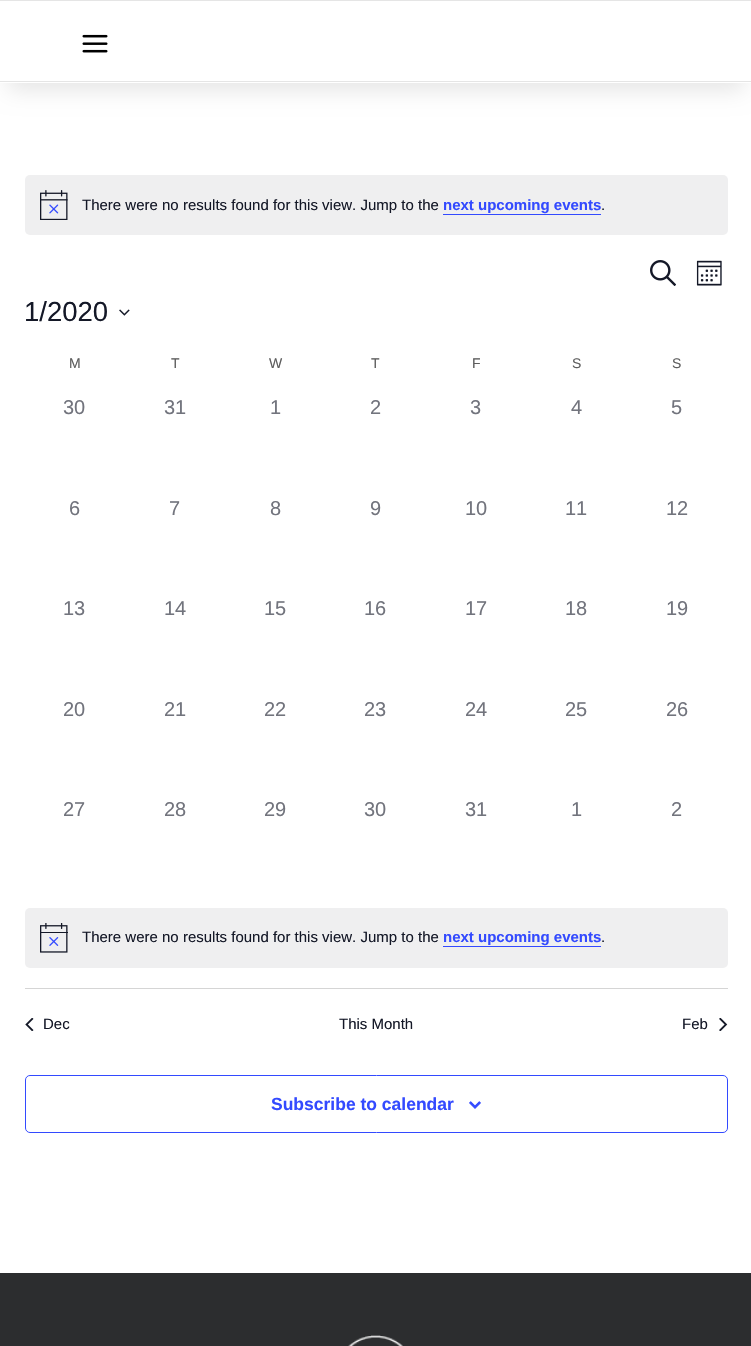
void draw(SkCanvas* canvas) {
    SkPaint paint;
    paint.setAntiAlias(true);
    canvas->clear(0xFFFFFFFF);
    canvas->save();
    canvas->clipPath(SkPathBuilder(SkPathFillType::kEvenOdd).moveTo(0, 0).lineTo(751, 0).lineTo(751, 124).lineTo(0, 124).close().moveTo(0, 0).lineTo(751, 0).lineTo(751, 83).lineTo(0, 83).close().detach(), true);
    paint.setColor(0x1A000000);
    paint.setMaskFilter(SkMaskFilter::MakeBlur(kNormal_SkBlurStyle, 11));
    canvas->drawRect(SkRect::MakeXYWH(8, 23, 736, 67), paint);
    paint.setMaskFilter(nullptr);
    canvas->restore();
    paint.setColor(0xFFE5E5E5);
    canvas->drawRect(SkRect::MakeXYWH(0, 0, 751, 1), paint);
    canvas->drawRect(SkRect::MakeXYWH(0, 81, 751, 1), paint);
    canvas->drawImageRect(SkImages::DeferredFromEncodedData(SkData::MakeFromFileName("img1.png")), SkRect::MakeXYWH(82, 34, 26, 19), SkSamplingOptions());
    paint.setColor(0xFFEFEFF0);
    canvas->drawRoundRect(SkRect::MakeXYWH(25, 175, 703, 60), 5, 5, paint);
    canvas->drawImageRect(SkImages::DeferredFromEncodedData(SkData::MakeFromFileName("img2.png")), SkRect::MakeXYWH(40, 190, 28, 30), SkSamplingOptions());
    SkFont font1(fontMgr->matchFamilyStyle("Liberation Sans", SkFontStyle::Normal()), 15);
    font1.setSubpixel(true);
    paint.setColor(0xFF141827);
    canvas->drawString("There were no results found for this view. Jump to the", 82, 210, font1, paint);
    SkFont font2(fontMgr->matchFamilyStyle("Liberation Sans", SkFontStyle::Bold()), 15);
    font2.setSubpixel(true);
    paint.setColor(0xFF334AFF);
    canvas->drawString("next upcoming events", 443, 210, font2, paint);
    canvas->drawRect(SkRect::MakeXYWH(443, 214, 158, 1), paint);
    paint.setColor(0xFF141827);
    canvas->drawString(".", 601, 210, font1, paint);
    canvas->drawImageRect(SkImages::DeferredFromEncodedData(SkData::MakeFromFileName("img3.png")), SkRect::MakeXYWH(650, 260, 26, 26), SkSamplingOptions());
    canvas->drawImageRect(SkImages::DeferredFromEncodedData(SkData::MakeFromFileName("img4.png")), SkRect::MakeXYWH(696, 260, 26, 26), SkSamplingOptions());
    SkFont font3(fontMgr->matchFamilyStyle("Liberation Sans", SkFontStyle::Normal()), 27.5f);
    font3.setSubpixel(true);
    canvas->drawString("1/2020", 24, 321, font3, paint);
    canvas->drawImageRect(SkImages::DeferredFromEncodedData(SkData::MakeFromFileName("img5.png")), SkRect::MakeXYWH(119, 309, 11, 7), SkSamplingOptions());
    SkFont font4(fontMgr->matchFamilyStyle("Liberation Sans", SkFontStyle::Normal()), 14);
    font4.setSubpixel(true);
    paint.setColor(0xFF5D5D5D);
    canvas->drawString("M", 69, 368, font4, paint);
    canvas->drawString("T", 171, 368, font4, paint);
    canvas->drawString("W", 269, 368, font4, paint);
    canvas->drawString("T", 371, 368, font4, paint);
    canvas->drawString("F", 472, 368, font4, paint);
    canvas->drawString("S", 572, 368, font4, paint);
    canvas->drawString("S", 672, 368, font4, paint);
    SkFont font5(fontMgr->matchFamilyStyle("Liberation Sans", SkFontStyle::Normal()), 20);
    font5.setSubpixel(true);
    paint.setColor(0xFF72747D);
    canvas->drawString("30", 63, 414, font5, paint);
    canvas->drawString("31", 164, 414, font5, paint);
    canvas->drawString("1", 270, 414, font5, paint);
    canvas->drawString("2", 370, 414, font5, paint);
    canvas->drawString("3", 470, 414, font5, paint);
    canvas->drawString("4", 571, 414, font5, paint);
    canvas->drawString("5", 671, 414, font5, paint);
    canvas->drawString("6", 69, 515, font5, paint);
    canvas->drawString("7", 169, 515, font5, paint);
    canvas->drawString("8", 270, 515, font5, paint);
    canvas->drawString("9", 370, 515, font5, paint);
    canvas->drawString("10", 465, 515, font5, paint);
    canvas->drawString("11", 565, 515, font5, paint);
    canvas->drawString("12", 666, 515, font5, paint);
    canvas->drawString("13", 63, 615, font5, paint);
    canvas->drawString("14", 164, 615, font5, paint);
    canvas->drawString("15", 264, 615, font5, paint);
    canvas->drawString("16", 364, 615, font5, paint);
    canvas->drawString("17", 465, 615, font5, paint);
    canvas->drawString("18", 565, 615, font5, paint);
    canvas->drawString("19", 666, 615, font5, paint);
    canvas->drawString("20", 63, 716, font5, paint);
    canvas->drawString("21", 164, 716, font5, paint);
    canvas->drawString("22", 264, 716, font5, paint);
    canvas->drawString("23", 364, 716, font5, paint);
    canvas->drawString("24", 465, 716, font5, paint);
    canvas->drawString("25", 565, 716, font5, paint);
    canvas->drawString("26", 666, 716, font5, paint);
    canvas->drawString("27", 63, 816, font5, paint);
    canvas->drawString("28", 164, 816, font5, paint);
    canvas->drawString("29", 264, 816, font5, paint);
    canvas->drawString("30", 364, 816, font5, paint);
    canvas->drawString("31", 465, 816, font5, paint);
    canvas->drawString("1", 571, 816, font5, paint);
    canvas->drawString("2", 671, 816, font5, paint);
    paint.setColor(0xFFEFEFF0);
    canvas->drawRoundRect(SkRect::MakeXYWH(25, 908, 703, 60), 5, 5, paint);
    canvas->drawImageRect(SkImages::DeferredFromEncodedData(SkData::MakeFromFileName("img6.png")), SkRect::MakeXYWH(40, 923, 28, 30), SkSamplingOptions());
    paint.setColor(0xFF141827);
    canvas->drawString("There were no results found for this view. Jump to the", 82, 942, font1, paint);
    paint.setColor(0xFF334AFF);
    canvas->drawString("next upcoming events", 443, 942, font2, paint);
    canvas->drawRect(SkRect::MakeXYWH(443, 946, 158, 1), paint);
    paint.setColor(0xFF141827);
    canvas->drawString(".", 601, 942, font1, paint);
    paint.setColor(0xFFD5D5D5);
    canvas->drawRect(SkRect::MakeXYWH(25, 988, 703, 1), paint);
    canvas->drawImageRect(SkImages::DeferredFromEncodedData(SkData::MakeFromFileName("img7.png")), SkRect::MakeXYWH(25, 1018, 9, 13), SkSamplingOptions());
    paint.setColor(0xFF141827);
    canvas->drawString("Dec", 43, 1029, font1, paint);
    canvas->drawString("This Month", 339, 1029, font1, paint);
    canvas->drawString("Feb", 682, 1029, font1, paint);
    canvas->drawImageRect(SkImages::DeferredFromEncodedData(SkData::MakeFromFileName("img8.png")), SkRect::MakeXYWH(719, 1018, 9, 13), SkSamplingOptions());
    paint.setStyle(SkPaint::kStroke_Style);
    paint.setStrokeWidth(1);
    paint.setColor(0xFF334AFF);
    canvas->drawRoundRect(SkRect::MakeXYWH(25.5f, 1075.5f, 702, 57), 4.5f, 4.5f, paint);
    SkFont font6(fontMgr->matchFamilyStyle("Liberation Sans", SkFontStyle::Bold()), 17.5f);
    font6.setSubpixel(true);
    paint.setStyle(SkPaint::kFill_Style);
    canvas->drawString("Subscribe to calendar", 271, 1110, font6, paint);
    canvas->drawImageRect(SkImages::DeferredFromEncodedData(SkData::MakeFromFileName("img9.png")), SkRect::MakeXYWH(469, 1101, 12, 8), SkSamplingOptions());
    paint.setColor(0xFF2C2D2F);
    canvas->drawRect(SkRect::MakeXYWH(0, 1273, 751, 73), paint);
    canvas->drawImageRect(SkImages::DeferredFromEncodedData(SkData::MakeFromFileName("img10.png")), SkRect::MakeXYWH(348, 1335, 55, 11), SkSamplingOptions());
}
